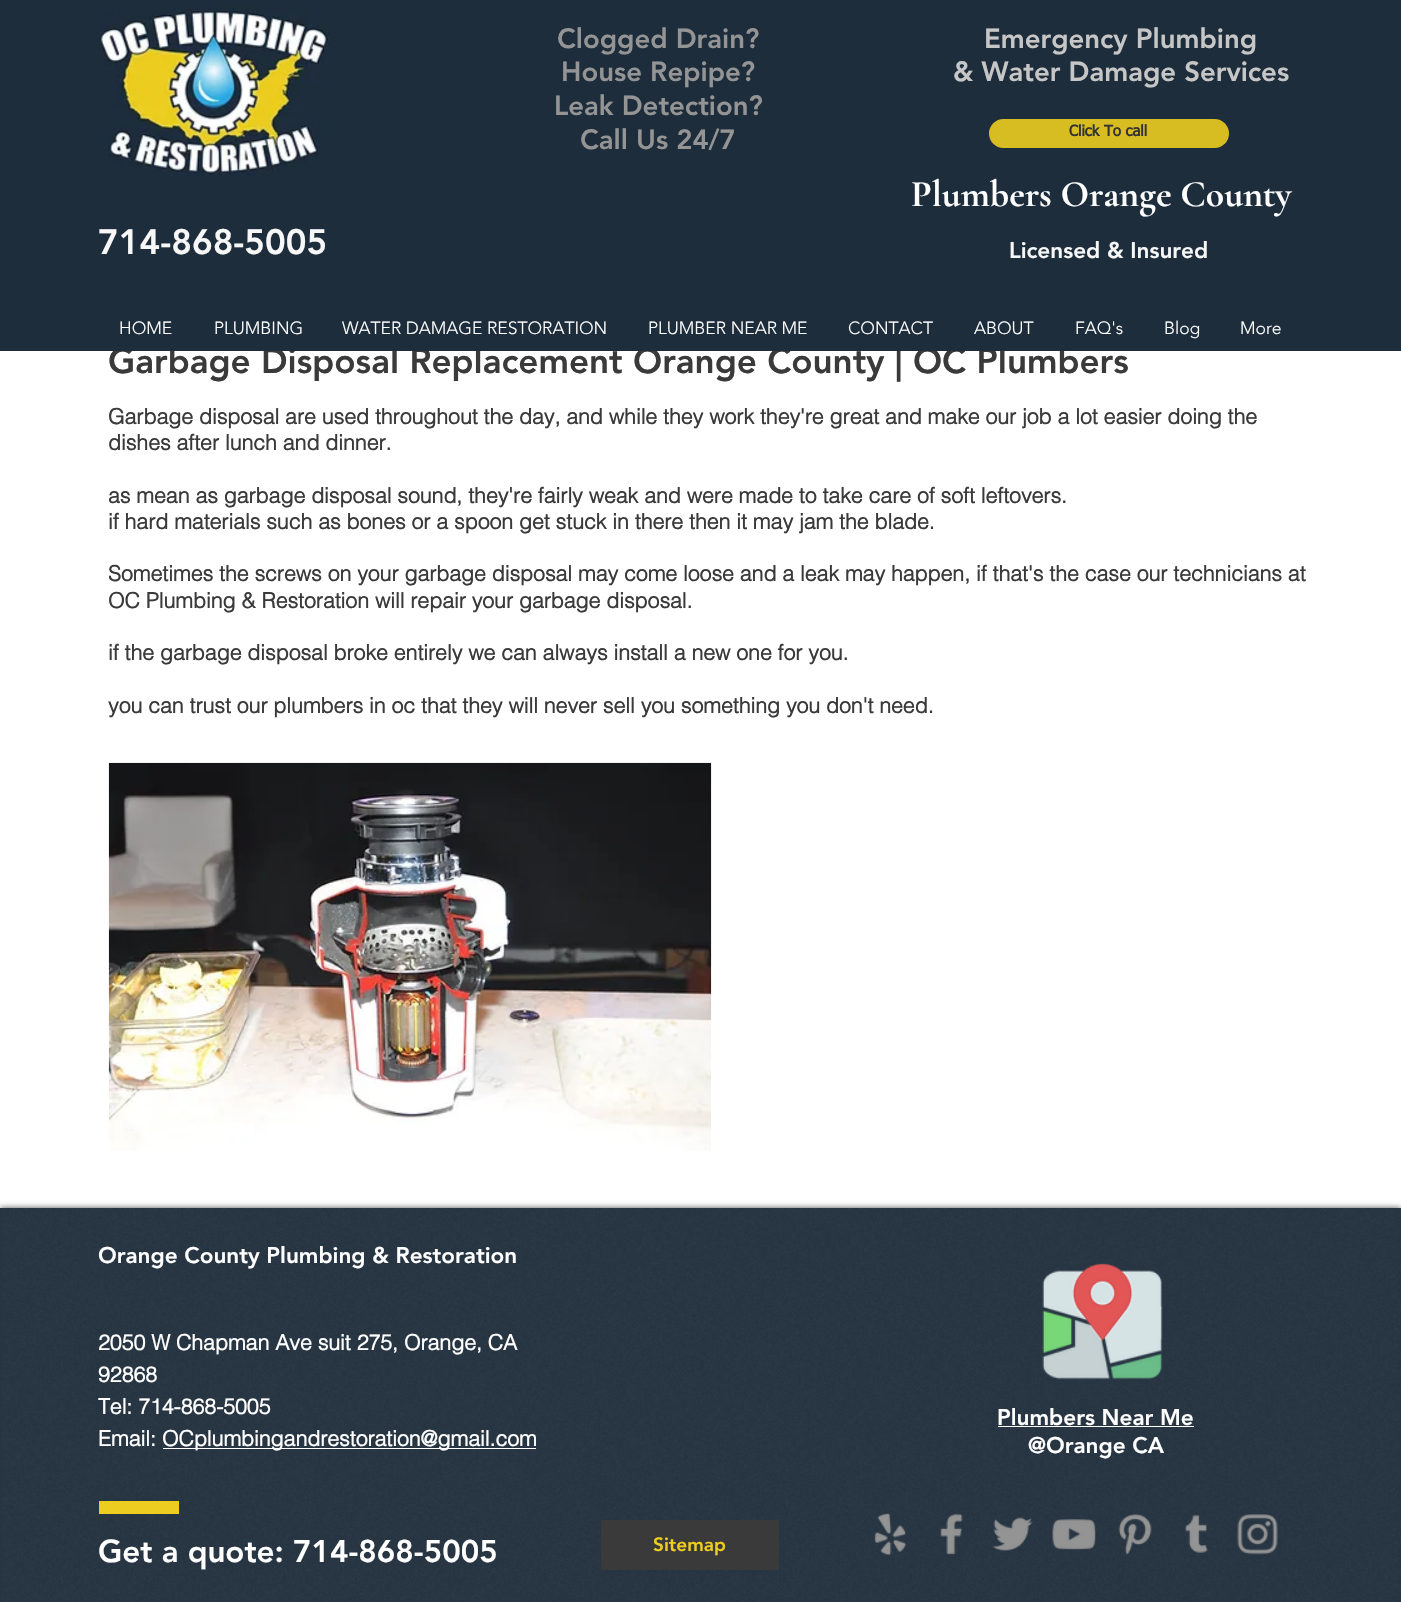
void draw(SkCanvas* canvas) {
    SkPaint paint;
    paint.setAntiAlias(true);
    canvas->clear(0xFFFFFFFF);
    SkFont font1(fontMgr->matchFamilyStyle("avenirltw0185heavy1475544", SkFontStyle(900, SkFontStyle::kNormal_Width, SkFontStyle::kUpright_Slant)), 35);
    font1.setSubpixel(true);
    paint.setColor(0xFF3B3A3A);
    canvas->drawString("Garbage Disposal Replacement Orange County | OC Plumbers", 108, 373, font1, paint);
    paint.setColor(0xFF1E2D3B);
    canvas->drawRect(SkRect::MakeXYWH(0, 0, 1401, 351), paint);
    canvas->drawImageRect(SkImages::DeferredFromEncodedData(SkData::MakeFromFileName("img1.png")), SkRect::MakeXYWH(99, 5, 230, 171), SkSamplingOptions());
    SkFont font2(fontMgr->matchFamilyStyle("avenirltw0185heavy1475544", SkFontStyle(900, SkFontStyle::kNormal_Width, SkFontStyle::kUpright_Slant)), 27.5f);
    font2.setSubpixel(true);
    paint.setColor(0xFF949494);
    canvas->drawString("Clogged Drain?", 557, 48, font2, paint);
    canvas->drawString("House Repipe?", 561, 81, font2, paint);
    canvas->drawString("Leak Detection?", 554, 115, font2, paint);
    canvas->drawString("Call Us 24/7", 580, 149, font2, paint);
    paint.setColor(0xFFC6C6C6);
    canvas->drawString("Emergency Plumbing", 984, 48, font2, paint);
    canvas->drawString("& Water Damage Services", 953, 81, font2, paint);
    paint.setColor(0xFFD8BD22);
    canvas->drawRoundRect(SkRect::MakeXYWH(989, 119, 240, 29), 14.5f, 14.5f, paint);
    SkFont font3(fontMgr->matchFamilyStyle("tahoma", SkFontStyle::Bold()), 15);
    font3.setSubpixel(true);
    paint.setColor(0xFF323232);
    canvas->drawString("Click To call", 1069, 136, font3, paint);
    SkFont font4(fontMgr->matchFamilyStyle("Cormorant Garamond", SkFontStyle::Bold()), 37.5f);
    font4.setSubpixel(true);
    paint.setColor(0xFFFFFFFF);
    canvas->drawString("Plumbers Orange County", 911, 206, font4, paint);
    paint.setColor(0xFFF7F7F7);
    canvas->drawString("714-868-5005", 98, 254, font1, paint);
    SkFont font5(fontMgr->matchFamilyStyle("avenirltw0185heavy1475544", SkFontStyle(900, SkFontStyle::kNormal_Width, SkFontStyle::kUpright_Slant)), 22.5f);
    font5.setSubpixel(true);
    canvas->drawString("Licensed & Insured", 1009, 258, font5, paint);
    SkFont font6(fontMgr->matchFamilyStyle("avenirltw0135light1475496", SkFontStyle(300, SkFontStyle::kNormal_Width, SkFontStyle::kUpright_Slant)), 17.5f);
    font6.setSubpixel(true);
    paint.setColor(0xFFFFFFFF);
    canvas->drawString("HOME", 119, 334, font6, paint);
    canvas->drawString("PLUMBING", 214, 334, font6, paint);
    canvas->drawString("WATER DAMAGE RESTORATION", 342, 334, font6, paint);
    canvas->drawString("PLUMBER NEAR ME", 648, 334, font6, paint);
    canvas->drawString("CONTACT", 848, 334, font6, paint);
    canvas->drawString("ABOUT", 974, 334, font6, paint);
    canvas->drawString("FAQ's", 1075, 334, font6, paint);
    canvas->drawString("Blog", 1164, 334, font6, paint);
    canvas->drawString("More", 1240, 334, font6, paint);
    SkFont font7(fontMgr->matchFamilyStyle("helvetica", SkFontStyle::Bold()), 21.25f);
    font7.setSubpixel(true);
    paint.setColor(0xFF3B3A3A);
    canvas->drawString("Garbage disposal are used throughout the day, and while they work they're great and make our job a lot easier doing the", 108, 424, font7, paint);
    canvas->drawString("dishes after lunch and dinner.", 108, 450, font7, paint);
    canvas->drawString("as mean as garbage disposal sound, they're fairly weak and were made to take care of soft leftovers.", 108, 503, font7, paint);
    canvas->drawString("if hard materials such as bones or a spoon get stuck in there then it may jam the blade.", 108, 529, font7, paint);
    canvas->drawString("Sometimes the screws on your garbage disposal may come loose and a leak may happen, if that's the case our technicians at", 108, 581, font7, paint);
    canvas->drawString("OC Plumbing & Restoration will repair your garbage disposal.", 108, 608, font7, paint);
    canvas->drawString("if the garbage disposal broke entirely we can always install a new one for you.", 108, 660, font7, paint);
    canvas->drawString("you can trust our plumbers in oc that they will never sell you something you don't need.", 108, 713, font7, paint);
    canvas->drawImageRect(SkImages::DeferredFromEncodedData(SkData::MakeFromFileName("img2.png")), SkRect::MakeXYWH(108, 762, 604, 389), SkSamplingOptions());
    paint.setColor(0xB3000000);
    paint.setMaskFilter(SkMaskFilter::MakeBlur(kNormal_SkBlurStyle, 3));
    canvas->drawRect(SkRect::MakeXYWH(0, 1208, 1401, 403), paint);
    paint.setMaskFilter(nullptr);
    paint.setColor(0xFF273543);
    canvas->drawRect(SkRect::MakeXYWH(0, 1208, 1401, 394), paint);
    canvas->drawImageRect(SkImages::DeferredFromEncodedData(SkData::MakeFromFileName("img3.png")), SkRect::MakeXYWH(2, 1208, 1399, 394), SkSamplingOptions());
    paint.setColor(0xFFFFFFFF);
    canvas->drawString("Orange County Plumbing & Restoration", 98, 1263, font5, paint);
    canvas->drawImageRect(SkImages::DeferredFromEncodedData(SkData::MakeFromFileName("img4.png")), SkRect::MakeXYWH(1042, 1263, 121, 117), SkSamplingOptions());
    canvas->drawString("2050 W Chapman Ave suit 275, Orange, CA", 98, 1350, font7, paint);
    canvas->drawString("92868", 98, 1382, font7, paint);
    canvas->drawString("Tel: 714-868-5005", 98, 1414, font7, paint);
    canvas->drawString("Email:", 98, 1446, font7, paint);
    canvas->drawRect(SkRect::MakeXYWH(163, 1448, 373, 1), paint);
    canvas->drawString("OCplumbingandrestoration@gmail.com", 162, 1446, font7, paint);
    canvas->drawString("Plumbers Near Me", 997, 1425, font5, paint);
    canvas->drawRect(SkRect::MakeXYWH(998, 1426, 196, 1), paint);
    canvas->drawString("@Orange CA", 1028, 1453, font5, paint);
    paint.setColor(0xFFEDCD1F);
    canvas->drawRect(SkRect::MakeXYWH(99, 1501, 80, 13), paint);
    SkFont font8(fontMgr->matchFamilyStyle("avenirltw0185heavy1475544", SkFontStyle(900, SkFontStyle::kNormal_Width, SkFontStyle::kUpright_Slant)), 31.25f);
    font8.setSubpixel(true);
    paint.setColor(0xFFFFFFFF);
    canvas->drawString("Get a quote: 714-868-5005", 98, 1562, font8, paint);
    paint.setColor(0xFF3B3A3A);
    canvas->drawRect(SkRect::MakeXYWH(601, 1520, 178, 50), paint);
    SkFont font9(fontMgr->matchFamilyStyle("avenirltw0185heavy1475544", SkFontStyle(900, SkFontStyle::kNormal_Width, SkFontStyle::kUpright_Slant)), 19);
    font9.setSubpixel(true);
    paint.setColor(0xFFEDCD1F);
    canvas->drawString("Sitemap", 653, 1551, font9, paint);
    canvas->drawImageRect(SkImages::DeferredFromEncodedData(SkData::MakeFromFileName("img5.png")), SkRect::MakeXYWH(874, 1513, 33, 43), SkSamplingOptions());
    canvas->drawImageRect(SkImages::DeferredFromEncodedData(SkData::MakeFromFileName("img6.png")), SkRect::MakeXYWH(940, 1514, 23, 41), SkSamplingOptions());
    canvas->drawImageRect(SkImages::DeferredFromEncodedData(SkData::MakeFromFileName("img7.png")), SkRect::MakeXYWH(992, 1517, 41, 34), SkSamplingOptions());
    canvas->drawImageRect(SkImages::DeferredFromEncodedData(SkData::MakeFromFileName("img8.png")), SkRect::MakeXYWH(1052, 1519, 44, 31), SkSamplingOptions());
    canvas->drawImageRect(SkImages::DeferredFromEncodedData(SkData::MakeFromFileName("img9.png")), SkRect::MakeXYWH(1118, 1514, 34, 41), SkSamplingOptions());
    canvas->drawImageRect(SkImages::DeferredFromEncodedData(SkData::MakeFromFileName("img10.png")), SkRect::MakeXYWH(1185, 1515, 23, 38), SkSamplingOptions());
    canvas->drawImageRect(SkImages::DeferredFromEncodedData(SkData::MakeFromFileName("img11.png")), SkRect::MakeXYWH(1237, 1514, 41, 41), SkSamplingOptions());
}
